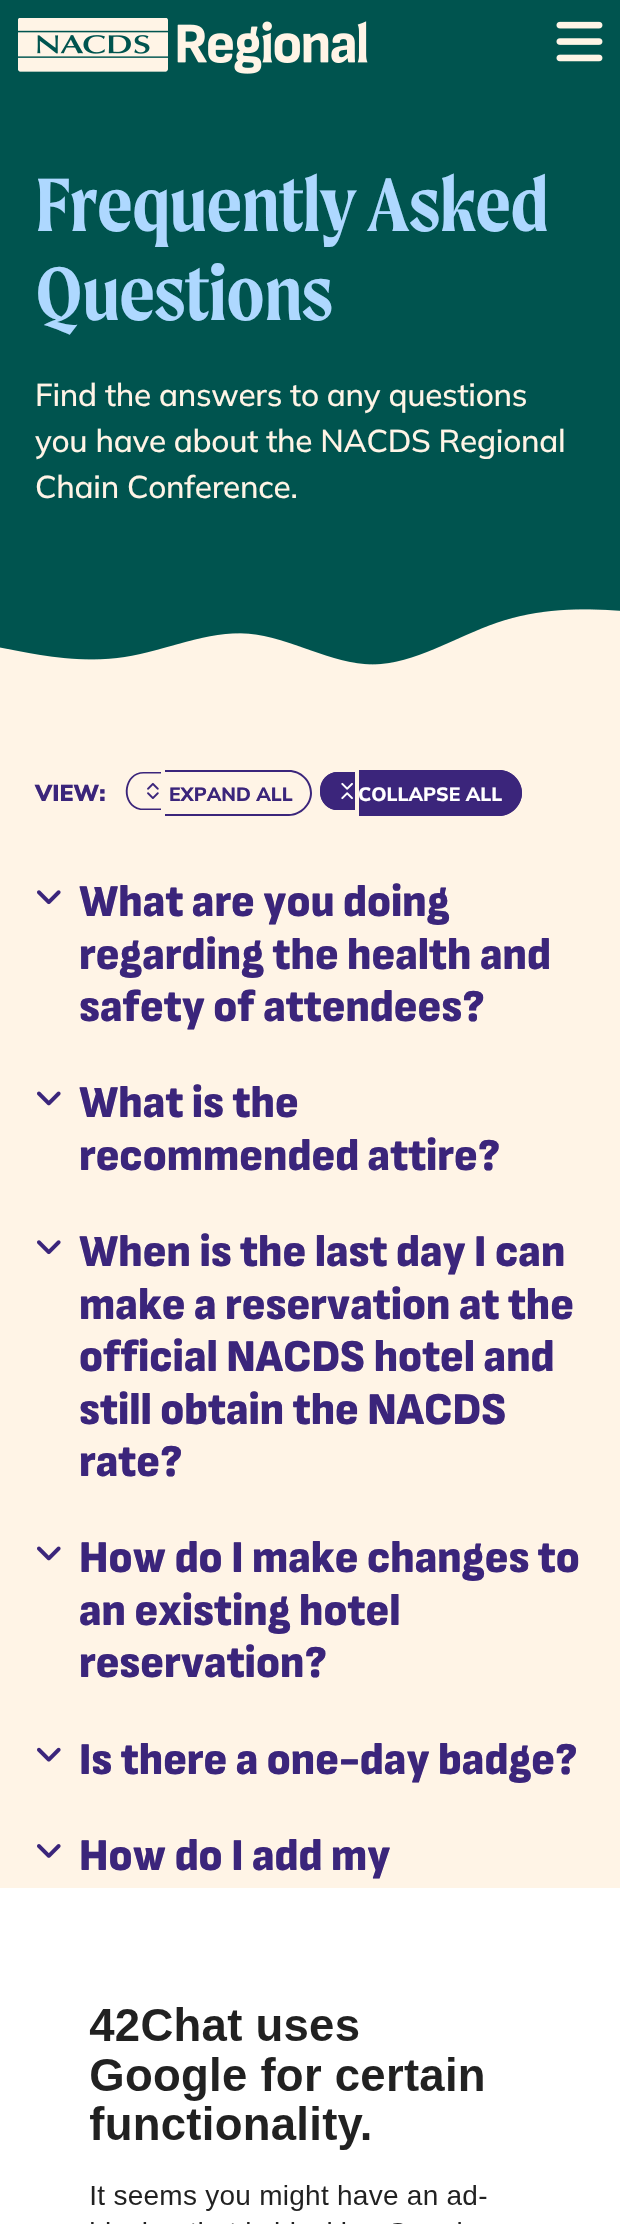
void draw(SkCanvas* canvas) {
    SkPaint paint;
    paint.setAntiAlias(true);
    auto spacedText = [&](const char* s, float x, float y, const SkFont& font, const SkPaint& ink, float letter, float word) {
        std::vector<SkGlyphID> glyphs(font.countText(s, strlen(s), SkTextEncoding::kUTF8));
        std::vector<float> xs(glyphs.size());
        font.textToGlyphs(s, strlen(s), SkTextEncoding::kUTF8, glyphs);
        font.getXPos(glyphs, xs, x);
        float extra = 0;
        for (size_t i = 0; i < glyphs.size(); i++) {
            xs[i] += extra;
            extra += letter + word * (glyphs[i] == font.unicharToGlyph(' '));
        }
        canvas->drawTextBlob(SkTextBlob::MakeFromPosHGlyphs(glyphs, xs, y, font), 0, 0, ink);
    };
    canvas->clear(0xFFFFF4E6);
    paint.setColor(0xFF00544F);
    canvas->drawRect(SkRect::MakeXYWH(0, 0, 620, 665), paint);
    canvas->drawImageRect(SkImages::DeferredFromEncodedData(SkData::MakeFromFileName("img1.png")), SkRect::MakeXYWH(18, 18, 350, 56), SkSamplingOptions());
    canvas->drawImageRect(SkImages::DeferredFromEncodedData(SkData::MakeFromFileName("img2.png")), SkRect::MakeXYWH(556, 21, 47, 41), SkSamplingOptions());
    SkFont font1(fontMgr->matchFamilyStyle("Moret", SkFontStyle(600, SkFontStyle::kNormal_Width, SkFontStyle::kUpright_Slant)), 80.5f);
    font1.setSubpixel(true);
    paint.setColor(0xFFAED8FF);
    spacedText("Frequently Asked", 35, 231, font1, paint, -0.75f, 0);
    spacedText("Questions", 35, 320, font1, paint, -0.75f, 0);
    SkFont font2(fontMgr->matchFamilyStyle("Mulish", SkFontStyle(500, SkFontStyle::kNormal_Width, SkFontStyle::kUpright_Slant)), 31.5f);
    font2.setSubpixel(true);
    paint.setColor(0xFFFFF4E6);
    spacedText("Find the answers to any questions", 35, 406, font2, paint, -0.3f, 0);
    spacedText("you have about the NACDS Regional", 35, 452, font2, paint, -0.3f, 0);
    spacedText("Chain Conference.", 35, 498, font2, paint, -0.3f, 0);
    canvas->drawImageRect(SkImages::DeferredFromEncodedData(SkData::MakeFromFileName("img3.png")), SkRect::MakeXYWH(0, 609, 620, 75), SkSamplingOptions());
    SkFont font3(fontMgr->matchFamilyStyle("Mulish", SkFontStyle(900, SkFontStyle::kNormal_Width, SkFontStyle::kUpright_Slant)), 23);
    font3.setSubpixel(true);
    paint.setColor(0xFF3B257B);
    canvas->drawString("VIEW:", 35, 801, font3, paint);
    canvas->drawPath(SkPathBuilder(SkPathFillType::kEvenOdd).moveTo(143.5f, 772).lineTo(161, 772).lineTo(161, 810).lineTo(149.5f, 810).cubicTo(145, 810, 140.5f, 810.5f, 136.5f, 809).cubicTo(119.5f, 801.5f, 123.5f, 772, 143.5f, 772).close().moveTo(143.5f, 773.5f).lineTo(161, 773.5f).lineTo(161, 808.5f).lineTo(149.5f, 808.5f).cubicTo(145.5f, 808.5f, 141, 809, 137.5f, 807.5f).cubicTo(122, 801, 125.5f, 773.5f, 143.5f, 773.5f).close().detach(), paint);
    canvas->drawRect(SkRect::MakeXYWH(165, 770, 5, 2), paint);
    canvas->drawRect(SkRect::MakeXYWH(165, 814, 5, 2), paint);
    canvas->drawPath(SkPathBuilder(SkPathFillType::kEvenOdd).moveTo(170, 770).lineTo(289, 770).cubicTo(301, 770, 312, 780, 312, 793).cubicTo(312, 805, 301, 816, 289, 816).lineTo(170, 816).close().moveTo(170, 772).lineTo(289, 772).cubicTo(300, 772, 310, 781, 310, 793).cubicTo(310, 804, 300, 814, 289, 814).lineTo(170, 814).close().detach(), paint);
    canvas->drawImageRect(SkImages::DeferredFromEncodedData(SkData::MakeFromFileName("img4.png")), SkRect::MakeXYWH(147, 782, 12, 17), SkSamplingOptions());
    SkFont font4(fontMgr->matchFamilyStyle("Mulish", SkFontStyle(800, SkFontStyle::kNormal_Width, SkFontStyle::kUpright_Slant)), 19.25f);
    font4.setSubpixel(true);
    canvas->drawString("EXPAND ALL", 169, 801, font4, paint);
    canvas->drawPath(SkPathBuilder().moveTo(337.5f, 772).lineTo(355, 772).lineTo(355, 810).lineTo(337.5f, 810).cubicTo(328, 810, 320, 802, 320, 792.5f).lineTo(320, 789.5f).cubicTo(320, 780, 328, 772, 337.5f, 772).close().detach(), paint);
    canvas->drawPath(SkPathBuilder(SkPathFillType::kEvenOdd).moveTo(338, 772).lineTo(355, 772).lineTo(355, 810).lineTo(343.5f, 810).cubicTo(339.5f, 810, 335, 810.5f, 331, 809).cubicTo(314, 801.5f, 317.5f, 772, 338, 772).close().moveTo(338, 773.5f).lineTo(355, 773.5f).lineTo(355, 808.5f).lineTo(343.5f, 808.5f).cubicTo(339.5f, 808.5f, 335.5f, 809, 331.5f, 807.5f).cubicTo(316, 801, 319.5f, 773.5f, 338, 773.5f).close().detach(), paint);
    canvas->drawPath(SkPathBuilder().moveTo(359, 770).lineTo(499, 770).cubicTo(511.5f, 770, 522, 780.5f, 522, 793).cubicTo(522, 805.5f, 511.5f, 816, 499, 816).lineTo(359, 816).close().detach(), paint);
    canvas->drawPath(SkPathBuilder(SkPathFillType::kEvenOdd).moveTo(359, 770).lineTo(499, 770).cubicTo(511, 770, 522, 780, 522, 793).cubicTo(522, 805, 511, 816, 499, 816).lineTo(359, 816).close().moveTo(359, 772).lineTo(499, 772).cubicTo(510, 772, 520, 781, 520, 793).cubicTo(520, 804, 510, 814, 499, 814).lineTo(359, 814).close().detach(), paint);
    canvas->drawImageRect(SkImages::DeferredFromEncodedData(SkData::MakeFromFileName("img5.png")), SkRect::MakeXYWH(341, 782, 12, 18), SkSamplingOptions());
    paint.setColor(0xFFFFFFFF);
    canvas->drawString("COLLAPSE ALL", 358, 801, font4, paint);
    canvas->drawImageRect(SkImages::DeferredFromEncodedData(SkData::MakeFromFileName("img6.png")), SkRect::MakeXYWH(37, 890, 24, 15), SkSamplingOptions());
    SkFont font5(fontMgr->matchFamilyStyle("Sofia Sans Semi Condensed", SkFontStyle(900, SkFontStyle::kNormal_Width, SkFontStyle::kUpright_Slant)), 45.5f);
    font5.setSubpixel(true);
    paint.setColor(0xFF3B257B);
    canvas->drawString("What are you doing", 79, 916, font5, paint);
    canvas->drawString("regarding the health and", 79, 969, font5, paint);
    canvas->drawString("safety of attendees?", 79, 1021, font5, paint);
    canvas->drawImageRect(SkImages::DeferredFromEncodedData(SkData::MakeFromFileName("img7.png")), SkRect::MakeXYWH(37, 1091, 24, 15), SkSamplingOptions());
    canvas->drawString("What is the", 79, 1117, font5, paint);
    canvas->drawString("recommended attire?", 79, 1170, font5, paint);
    canvas->drawImageRect(SkImages::DeferredFromEncodedData(SkData::MakeFromFileName("img6.png")), SkRect::MakeXYWH(37, 1240, 24, 15), SkSamplingOptions());
    canvas->drawString("When is the last day I can", 79, 1266, font5, paint);
    canvas->drawString("make a reservation at the", 79, 1319, font5, paint);
    canvas->drawString("official NACDS hotel and", 79, 1371, font5, paint);
    canvas->drawString("still obtain the NACDS", 79, 1424, font5, paint);
    canvas->drawString("rate?", 79, 1476, font5, paint);
    canvas->drawImageRect(SkImages::DeferredFromEncodedData(SkData::MakeFromFileName("img7.png")), SkRect::MakeXYWH(37, 1546, 24, 15), SkSamplingOptions());
    canvas->drawString("How do I make changes to", 79, 1572, font5, paint);
    canvas->drawString("an existing hotel", 79, 1625, font5, paint);
    canvas->drawString("reservation?", 79, 1677, font5, paint);
    canvas->drawImageRect(SkImages::DeferredFromEncodedData(SkData::MakeFromFileName("img8.png")), SkRect::MakeXYWH(37, 1747, 24, 15), SkSamplingOptions());
    canvas->drawString("Is there a one-day badge?", 79, 1774, font5, paint);
    canvas->drawImageRect(SkImages::DeferredFromEncodedData(SkData::MakeFromFileName("img9.png")), SkRect::MakeXYWH(37, 1844, 24, 14), SkSamplingOptions());
    canvas->drawString("How do I add my", 79, 1870, font5, paint);
    canvas->drawImageRect(SkImages::DeferredFromEncodedData(SkData::MakeFromFileName("img10.png")), SkRect::MakeXYWH(0, 1888, 620, 336), SkSamplingOptions());
}
